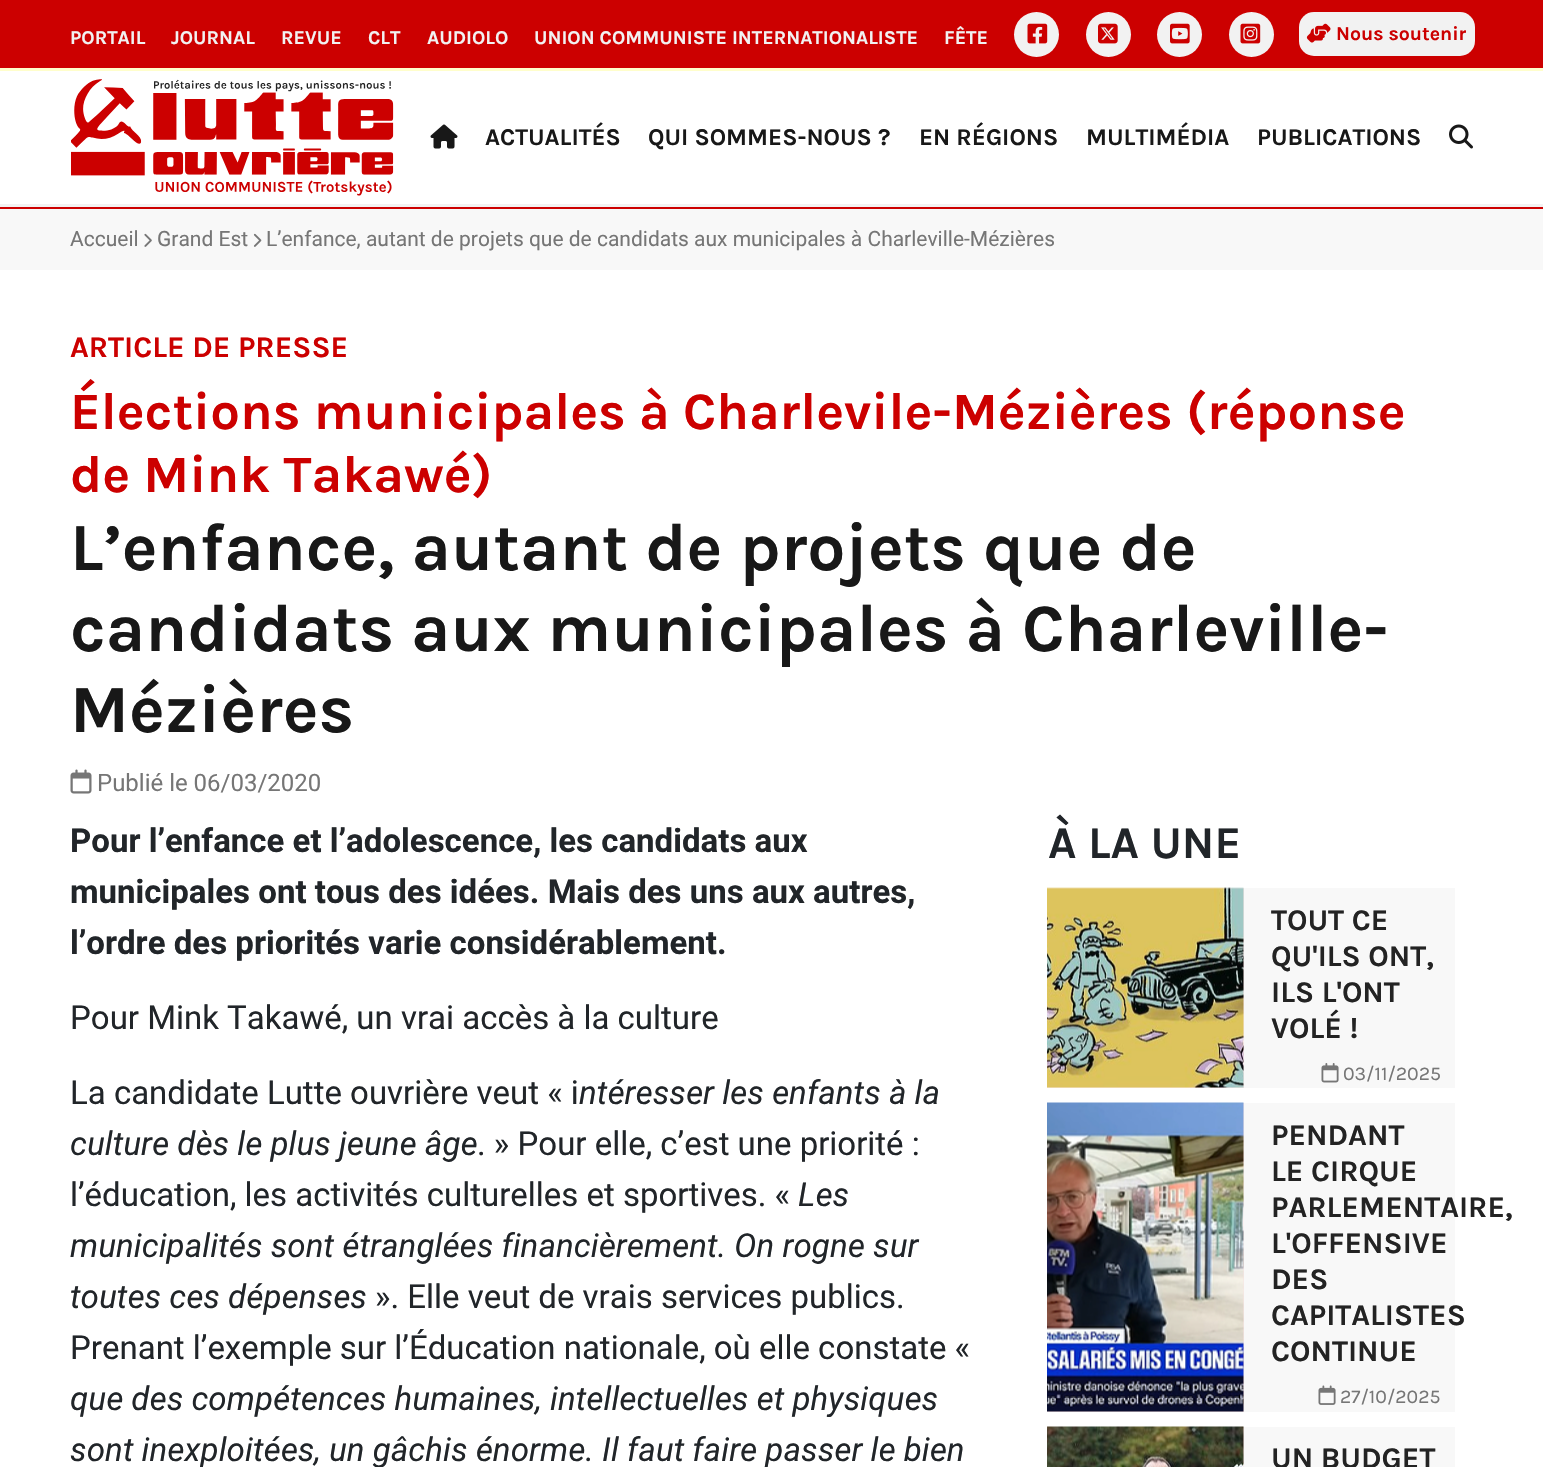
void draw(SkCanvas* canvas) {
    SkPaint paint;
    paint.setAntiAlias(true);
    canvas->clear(0xFFFFFFFF);
    paint.setColor(0xFFF2F2F2);
    canvas->drawRect(SkRect::MakeXYWH(0, 204, 1543, 3), paint);
    paint.setColor(0xFFCC0000);
    canvas->drawRect(SkRect::MakeXYWH(0, 0, 1543, 68), paint);
    paint.setColor(0xFFFFFECB);
    canvas->drawRect(SkRect::MakeXYWH(0, 68, 1543, 3), paint);
    SkFont font1(fontMgr->matchFamilyStyle("Karla", SkFontStyle::Bold()), 19.5f);
    font1.setSubpixel(true);
    paint.setColor(0xFFF2F2F2);
    canvas->drawString("PORTAIL", 70, 44, font1, paint);
    canvas->drawString("JOURNAL", 171, 44, font1, paint);
    canvas->drawString("REVUE", 281, 44, font1, paint);
    canvas->drawString("CLT", 368, 44, font1, paint);
    canvas->drawString("AUDIOLO", 427, 44, font1, paint);
    canvas->drawString("UNION COMMUNISTE INTERNATIONALISTE", 534, 44, font1, paint);
    canvas->drawString("FÊTE", 944, 44, font1, paint);
    canvas->drawCircle(1036.5f, 34.5f, 22.5f, paint);
    canvas->drawImageRect(SkImages::DeferredFromEncodedData(SkData::MakeFromFileName("img1.png")), SkRect::MakeXYWH(1027, 23, 21, 21), SkSamplingOptions());
    canvas->drawCircle(1108.5f, 34.5f, 22.5f, paint);
    canvas->drawImageRect(SkImages::DeferredFromEncodedData(SkData::MakeFromFileName("img2.png")), SkRect::MakeXYWH(1098, 23, 20, 21), SkSamplingOptions());
    canvas->drawCircle(1179.5f, 34.5f, 22.5f, paint);
    canvas->drawImageRect(SkImages::DeferredFromEncodedData(SkData::MakeFromFileName("img3.png")), SkRect::MakeXYWH(1170, 23, 20, 21), SkSamplingOptions());
    canvas->drawCircle(1251.5f, 34.5f, 22.5f, paint);
    canvas->drawImageRect(SkImages::DeferredFromEncodedData(SkData::MakeFromFileName("img4.png")), SkRect::MakeXYWH(1240, 23, 21, 21), SkSamplingOptions());
    canvas->drawRoundRect(SkRect::MakeXYWH(1299, 12, 176, 44), 15, 15, paint);
    canvas->drawImageRect(SkImages::DeferredFromEncodedData(SkData::MakeFromFileName("img5.png")), SkRect::MakeXYWH(1306, 23, 25, 20), SkSamplingOptions());
    paint.setColor(0xFFCC0000);
    canvas->drawString("Nous soutenir", 1336, 40, font1, paint);
    canvas->drawImageRect(SkImages::DeferredFromEncodedData(SkData::MakeFromFileName("img6.png")), SkRect::MakeXYWH(71, 79, 323, 117), SkSamplingOptions());
    canvas->drawImageRect(SkImages::DeferredFromEncodedData(SkData::MakeFromFileName("img7.png")), SkRect::MakeXYWH(430, 124, 28, 25), SkSamplingOptions());
    SkFont font2(fontMgr->matchFamilyStyle("Karla", SkFontStyle::Bold()), 24);
    font2.setSubpixel(true);
    paint.setColor(0xFF181818);
    canvas->drawString("ACTUALITÉS", 485, 145, font2, paint);
    canvas->drawString("QUI SOMMES-NOUS ?", 648, 145, font2, paint);
    canvas->drawString("EN RÉGIONS", 919, 145, font2, paint);
    canvas->drawString("MULTIMÉDIA", 1086, 145, font2, paint);
    canvas->drawString("PUBLICATIONS", 1257, 145, font2, paint);
    canvas->drawImageRect(SkImages::DeferredFromEncodedData(SkData::MakeFromFileName("img8.png")), SkRect::MakeXYWH(1449, 124, 24, 25), SkSamplingOptions());
    paint.setColor(0xFFF8F8F8);
    canvas->drawRect(SkRect::MakeXYWH(0, 209, 1543, 61), paint);
    paint.setColor(0xFFCC0000);
    canvas->drawRect(SkRect::MakeXYWH(0, 207, 1543, 2), paint);
    SkFont font3(fontMgr->matchFamilyStyle("Roboto", SkFontStyle::Normal()), 21);
    font3.setSubpixel(true);
    paint.setColor(0xFF767676);
    canvas->drawString("Accueil", 70, 246, font3, paint);
    canvas->drawImageRect(SkImages::DeferredFromEncodedData(SkData::MakeFromFileName("img9.png")), SkRect::MakeXYWH(144, 233, 8, 14), SkSamplingOptions());
    canvas->drawString("Grand Est", 157, 246, font3, paint);
    canvas->drawImageRect(SkImages::DeferredFromEncodedData(SkData::MakeFromFileName("img10.png")), SkRect::MakeXYWH(253, 233, 9, 14), SkSamplingOptions());
    canvas->drawString("L’enfance, autant de projets que de candidats aux municipales à Charleville-Mézières", 266, 246, font3, paint);
    SkFont font4(fontMgr->matchFamilyStyle("Karla", SkFontStyle::Bold()), 30);
    font4.setSubpixel(true);
    paint.setColor(0xFFCC0000);
    canvas->drawString("ARTICLE DE PRESSE", 70, 357, font4, paint);
    SkFont font5(fontMgr->matchFamilyStyle("Karla", SkFontStyle::Bold()), 52.5f);
    font5.setSubpixel(true);
    canvas->drawString("Élections municipales à Charlevile-Mézières (réponse", 70, 429, font5, paint);
    canvas->drawString("de Mink Takawé)", 70, 492, font5, paint);
    SkFont font6(fontMgr->matchFamilyStyle("Karla", SkFontStyle::Bold()), 67.5f);
    font6.setSubpixel(true);
    paint.setColor(0xFF181818);
    canvas->drawString("L’enfance, autant de projets que de", 70, 570, font6, paint);
    canvas->drawString("candidats aux municipales à Charleville-", 70, 651, font6, paint);
    canvas->drawString("Mézières", 70, 732, font6, paint);
    canvas->drawImageRect(SkImages::DeferredFromEncodedData(SkData::MakeFromFileName("img11.png")), SkRect::MakeXYWH(70, 769, 22, 25), SkSamplingOptions());
    SkFont font7(fontMgr->matchFamilyStyle("Roboto", SkFontStyle::Normal()), 24);
    font7.setSubpixel(true);
    paint.setColor(0xFF767676);
    canvas->drawString("Publié le 06/03/2020", 97, 791, font7, paint);
    SkFont font8(fontMgr->matchFamilyStyle("Roboto", SkFontStyle::Bold()), 33);
    font8.setSubpixel(true);
    paint.setColor(0xFF212529);
    canvas->drawString("Pour l’enfance et l’adolescence, les candidats aux", 70, 852, font8, paint);
    canvas->drawString("municipales ont tous des idées. Mais des uns aux autres,", 70, 903, font8, paint);
    canvas->drawString("l’ordre des priorités varie considérablement.", 70, 954, font8, paint);
    SkFont font9(fontMgr->matchFamilyStyle("Roboto", SkFontStyle::Normal()), 33);
    font9.setSubpixel(true);
    canvas->drawString("Pour Mink Takawé, un vrai accès à la culture", 70, 1029, font9, paint);
    canvas->drawString("La candidate Lutte ouvrière veut « i", 70, 1104, font9, paint);
    SkFont font10(fontMgr->matchFamilyStyle("Roboto", SkFontStyle::Italic()), 33);
    font10.setSubpixel(true);
    canvas->drawString("ntéresser les enfants à la", 579, 1104, font10, paint);
    canvas->drawString("culture dès le plus jeune âge", 70, 1155, font10, paint);
    canvas->drawString(". » Pour elle, c’est une priorité :", 477, 1155, font9, paint);
    canvas->drawString("l’éducation, les activités culturelles et sportives. «", 70, 1206, font9, paint);
    canvas->drawString("Les", 798, 1206, font10, paint);
    canvas->drawString("municipalités sont étranglées financièrement. On rogne sur", 70, 1257, font10, paint);
    canvas->drawString("toutes ces dépenses", 70, 1308, font10, paint);
    canvas->drawString("». Elle veut de vrais services publics.", 375, 1308, font9, paint);
    canvas->drawString("Prenant l’exemple sur l’Éducation nationale, où elle constate «", 70, 1359, font9, paint);
    canvas->drawString("que des compétences humaines, intellectuelles et physiques", 70, 1410, font10, paint);
    canvas->drawString("sont inexploitées, un gâchis énorme. Il faut faire passer le bien", 70, 1461, font10, paint);
    SkFont font11(fontMgr->matchFamilyStyle("Karla", SkFontStyle::Bold()), 45.5f);
    font11.setSubpixel(true);
    canvas->drawString("À LA UNE", 1048, 858, font11, paint);
    paint.setColor(0xFFF8F8F8);
    canvas->drawRect(SkRect::MakeXYWH(1244, 888, 211, 200), paint);
    paint.setColor(0xFFF9E5E5);
    canvas->drawRect(SkRect::MakeXYWH(1047, 888, 197, 200), paint);
    canvas->drawImageRect(SkImages::DeferredFromEncodedData(SkData::MakeFromFileName("img12.png")), SkRect::MakeXYWH(1047, 887, 197, 201), SkSamplingOptions());
    paint.setColor(0xFF232323);
    canvas->drawString("TOUT CE", 1271, 930, font4, paint);
    canvas->drawString("QU'ILS ONT,", 1271, 966, font4, paint);
    canvas->drawString("ILS L'ONT", 1271, 1002, font4, paint);
    canvas->drawString("VOLÉ !", 1271, 1038, font4, paint);
    canvas->drawImageRect(SkImages::DeferredFromEncodedData(SkData::MakeFromFileName("img13.png")), SkRect::MakeXYWH(1321, 1063, 18, 20), SkSamplingOptions());
    SkFont font12(fontMgr->matchFamilyStyle("Karla", SkFontStyle::Normal()), 19.5f);
    font12.setSubpixel(true);
    paint.setColor(0xFF767676);
    canvas->drawString("03/11/2025", 1343, 1080, font12, paint);
    paint.setColor(0xFFF8F8F8);
    canvas->drawRect(SkRect::MakeXYWH(1244, 1103, 211, 309), paint);
    paint.setColor(0xFFF9E5E5);
    canvas->drawRect(SkRect::MakeXYWH(1047, 1103, 197, 309), paint);
    canvas->drawImageRect(SkImages::DeferredFromEncodedData(SkData::MakeFromFileName("img14.png")), SkRect::MakeXYWH(1047, 1102, 197, 310), SkSamplingOptions());
    paint.setColor(0xFF232323);
    canvas->drawString("PENDANT", 1271, 1145, font4, paint);
    canvas->drawString("LE CIRQUE", 1271, 1181, font4, paint);
    canvas->drawString("PARLEMENTAIRE,", 1271, 1217, font4, paint);
    canvas->drawString("L'OFFENSIVE", 1271, 1253, font4, paint);
    canvas->drawString("DES", 1271, 1289, font4, paint);
    canvas->drawString("CAPITALISTES", 1271, 1325, font4, paint);
    canvas->drawString("CONTINUE", 1271, 1361, font4, paint);
    canvas->drawImageRect(SkImages::DeferredFromEncodedData(SkData::MakeFromFileName("img15.png")), SkRect::MakeXYWH(1318, 1385, 18, 20), SkSamplingOptions());
    paint.setColor(0xFF767676);
    canvas->drawString("27/10/2025", 1340, 1403, font12, paint);
    paint.setColor(0xFFF8F8F8);
    canvas->drawRect(SkRect::MakeXYWH(1244, 1427, 211, 40), paint);
    paint.setColor(0xFFF9E5E5);
    canvas->drawRect(SkRect::MakeXYWH(1243, 1427, 1, 40), paint);
    canvas->drawImageRect(SkImages::DeferredFromEncodedData(SkData::MakeFromFileName("img16.png")), SkRect::MakeXYWH(1047, 1426, 197, 41), SkSamplingOptions());
    paint.setColor(0xFF232323);
    canvas->drawString("UN BUDGET", 1271, 1468, font4, paint);
}
